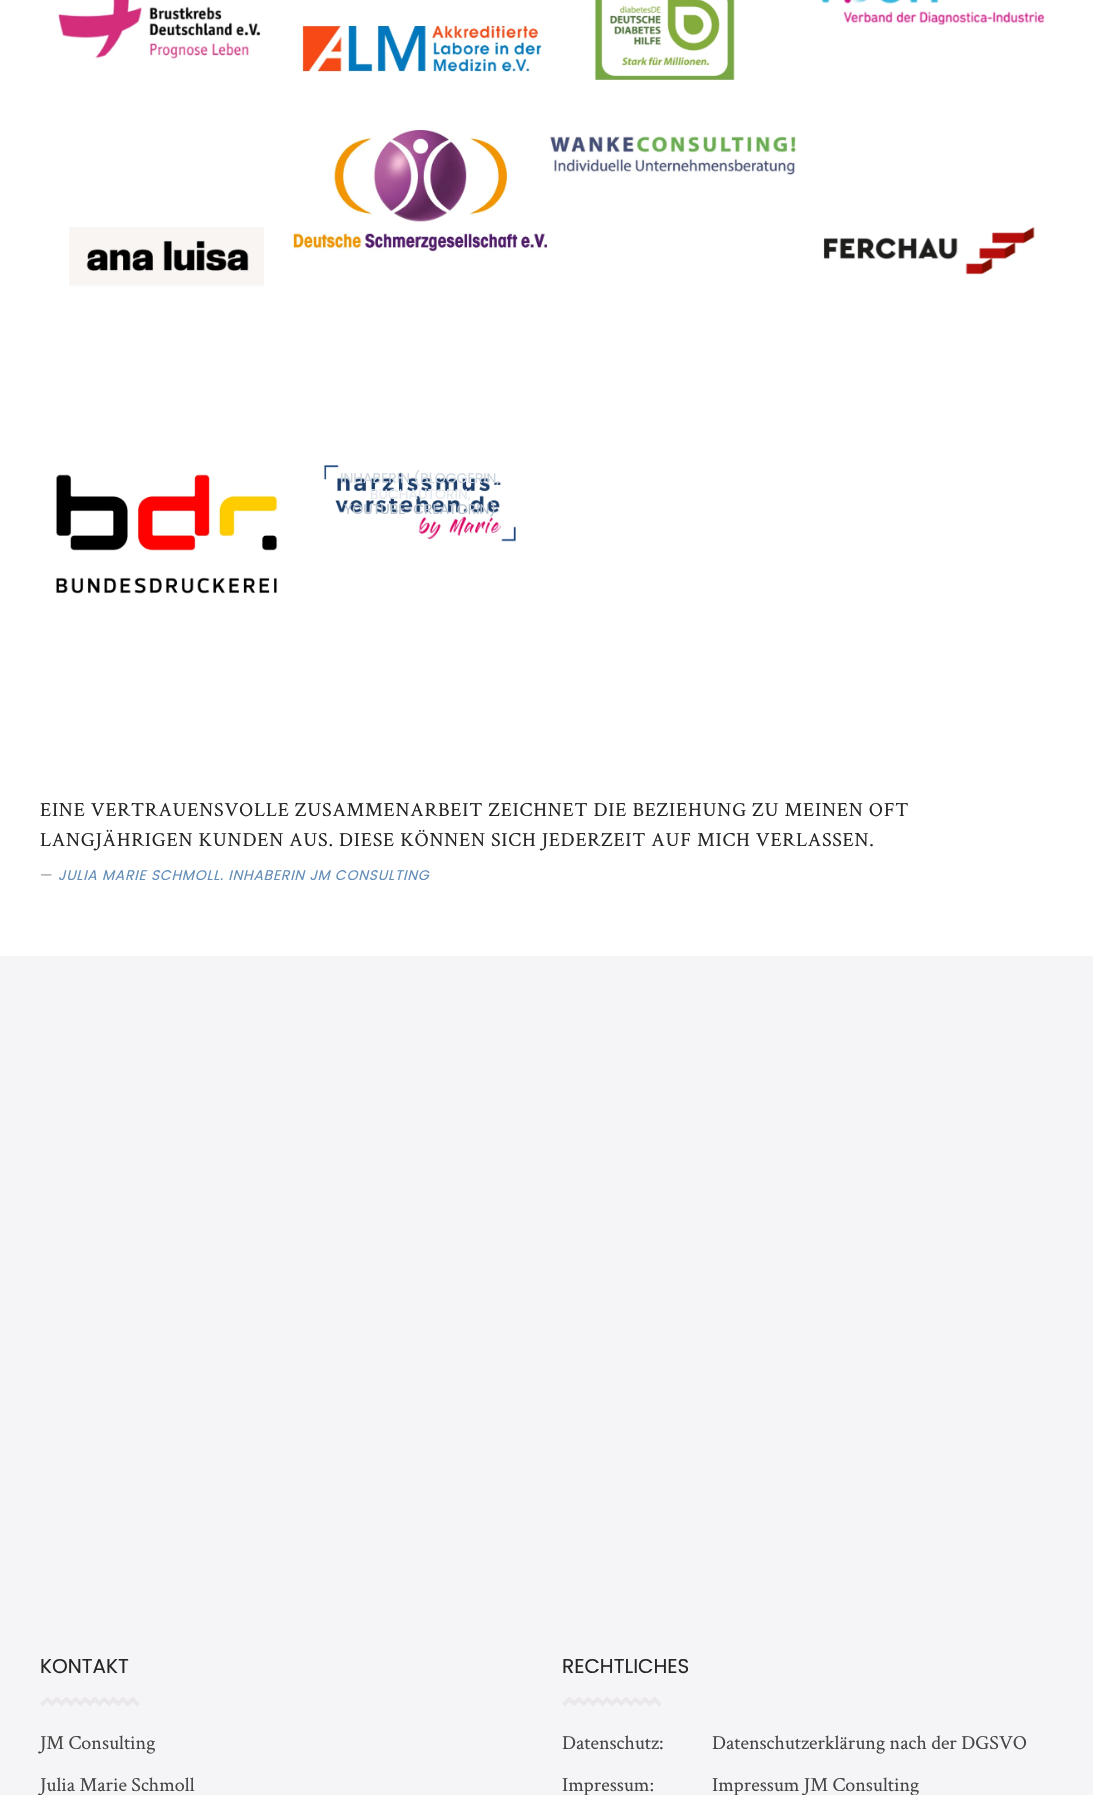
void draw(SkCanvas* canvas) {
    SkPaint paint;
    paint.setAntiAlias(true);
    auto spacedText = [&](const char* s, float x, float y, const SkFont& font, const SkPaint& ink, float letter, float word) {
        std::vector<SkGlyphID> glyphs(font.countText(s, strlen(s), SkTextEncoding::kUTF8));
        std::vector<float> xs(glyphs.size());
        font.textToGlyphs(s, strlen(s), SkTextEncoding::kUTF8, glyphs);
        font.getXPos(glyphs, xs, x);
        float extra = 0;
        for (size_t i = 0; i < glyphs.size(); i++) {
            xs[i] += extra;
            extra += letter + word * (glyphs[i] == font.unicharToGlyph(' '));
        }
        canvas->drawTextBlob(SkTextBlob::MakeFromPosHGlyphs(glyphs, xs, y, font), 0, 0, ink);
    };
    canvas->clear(0xFFFFFFFF);
    canvas->drawImageRect(SkImages::DeferredFromEncodedData(SkData::MakeFromFileName("img1.png")), SkRect::MakeXYWH(58, 0, 203, 59), SkSamplingOptions());
    canvas->drawImageRect(SkImages::DeferredFromEncodedData(SkData::MakeFromFileName("img2.png")), SkRect::MakeXYWH(590, 0, 145, 81), SkSamplingOptions());
    canvas->drawImageRect(SkImages::DeferredFromEncodedData(SkData::MakeFromFileName("img3.png")), SkRect::MakeXYWH(821, 0, 224, 25), SkSamplingOptions());
    canvas->drawImageRect(SkImages::DeferredFromEncodedData(SkData::MakeFromFileName("img4.png")), SkRect::MakeXYWH(302, 25, 240, 47), SkSamplingOptions());
    canvas->drawImageRect(SkImages::DeferredFromEncodedData(SkData::MakeFromFileName("img5.png")), SkRect::MakeXYWH(293, 130, 254, 122), SkSamplingOptions());
    canvas->drawImageRect(SkImages::DeferredFromEncodedData(SkData::MakeFromFileName("img6.png")), SkRect::MakeXYWH(549, 135, 248, 40), SkSamplingOptions());
    canvas->drawImageRect(SkImages::DeferredFromEncodedData(SkData::MakeFromFileName("img7.png")), SkRect::MakeXYWH(69, 227, 195, 59), SkSamplingOptions());
    canvas->drawImageRect(SkImages::DeferredFromEncodedData(SkData::MakeFromFileName("img8.png")), SkRect::MakeXYWH(823, 227, 212, 48), SkSamplingOptions());
    canvas->drawImageRect(SkImages::DeferredFromEncodedData(SkData::MakeFromFileName("img9.png")), SkRect::MakeXYWH(55, 474, 223, 120), SkSamplingOptions());
    canvas->drawImageRect(SkImages::DeferredFromEncodedData(SkData::MakeFromFileName("img10.png")), SkRect::MakeXYWH(323, 465, 193, 77), SkSamplingOptions());
    SkFont font1(fontMgr->matchFamilyStyle("Poppins", SkFontStyle::Normal()), 14);
    font1.setSubpixel(true);
    paint.setColor(0xFFCDD5DE);
    canvas->drawString("INHABERIN (BLOGGERIN,", 340, 483, font1, paint);
    paint.setColor(0xFFE5E9EE);
    canvas->drawString("BUCHAUTORIN,", 370, 499, font1, paint);
    paint.setColor(0xFFB7C2CF);
    canvas->drawString("YOUTUBE-CREATORIN)", 344, 514, font1, paint);
    SkFont font2(fontMgr->matchFamilyStyle("Crimson Text", SkFontStyle::Normal()), 20);
    font2.setSubpixel(true);
    paint.setColor(0xFF262626);
    spacedText("EINE VERTRAUENSVOLLE ZUSAMMENARBEIT ZEICHNET DIE BEZIEHUNG ZU MEINEN OFT", 40, 816, font2, paint, 0.75f, 0);
    spacedText("LANGJÄHRIGEN KUNDEN AUS. DIESE KÖNNEN SICH JEDERZEIT AUF MICH VERLASSEN.", 40, 846, font2, paint, 0.75f, 0);
    paint.setColor(0xFF9C9C9C);
    spacedText("—", 40, 880, font1, paint, 0.75f, 0);
    SkFont font3(fontMgr->matchFamilyStyle("Poppins", SkFontStyle::Italic()), 14);
    font3.setSubpixel(true);
    paint.setColor(0xFF638DB7);
    spacedText("JULIA MARIE SCHMOLL. INHABERIN JM CONSULTING", 58, 880, font3, paint, 0.75f, 0);
    paint.setColor(0xFFF5F4F6);
    canvas->drawRect(SkRect::MakeXYWH(0, 956, 1093, 839), paint);
    SkFont font4(fontMgr->matchFamilyStyle("Poppins", SkFontStyle::Normal()), 20);
    font4.setSubpixel(true);
    paint.setColor(0xFF262626);
    canvas->drawString("KONTAKT", 40, 1673, font4, paint);
    canvas->drawImageRect(SkImages::DeferredFromEncodedData(SkData::MakeFromFileName("img11.png")), SkRect::MakeXYWH(40, 1697, 100, 10), SkSamplingOptions());
    paint.setColor(0xFF464646);
    canvas->drawString("JM Consulting", 40, 1749, font2, paint);
    canvas->drawString("Julia Marie Schmoll", 40, 1791, font2, paint);
    paint.setColor(0xFF262626);
    canvas->drawString("RECHTLICHES", 562, 1673, font4, paint);
    canvas->drawImageRect(SkImages::DeferredFromEncodedData(SkData::MakeFromFileName("img11.png")), SkRect::MakeXYWH(562, 1697, 100, 10), SkSamplingOptions());
    paint.setColor(0xFF464646);
    canvas->drawString("Datenschutz:", 562, 1749, font2, paint);
    canvas->drawString("Datenschutzerklärung nach der DGSVO", 712, 1749, font2, paint);
    canvas->drawString("Impressum:", 562, 1791, font2, paint);
    canvas->drawString("Impressum JM Consulting", 712, 1791, font2, paint);
}
